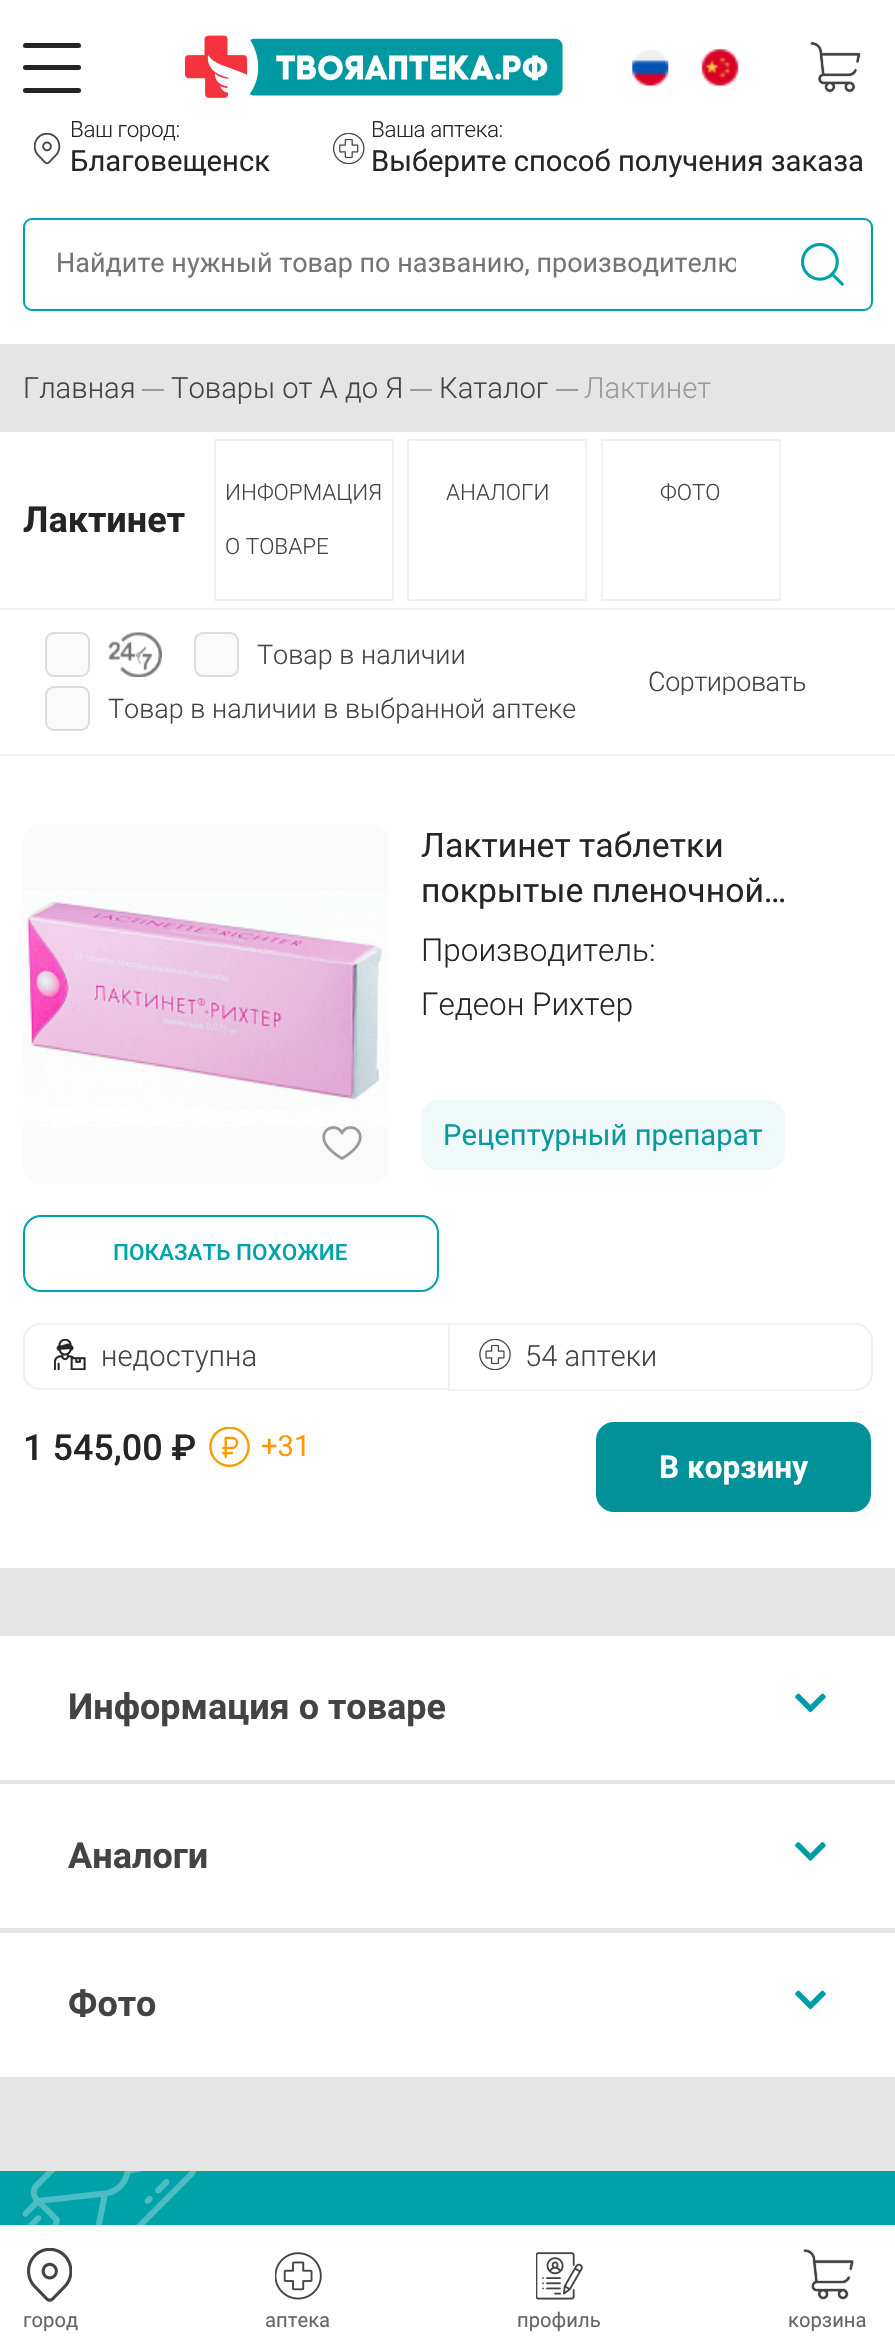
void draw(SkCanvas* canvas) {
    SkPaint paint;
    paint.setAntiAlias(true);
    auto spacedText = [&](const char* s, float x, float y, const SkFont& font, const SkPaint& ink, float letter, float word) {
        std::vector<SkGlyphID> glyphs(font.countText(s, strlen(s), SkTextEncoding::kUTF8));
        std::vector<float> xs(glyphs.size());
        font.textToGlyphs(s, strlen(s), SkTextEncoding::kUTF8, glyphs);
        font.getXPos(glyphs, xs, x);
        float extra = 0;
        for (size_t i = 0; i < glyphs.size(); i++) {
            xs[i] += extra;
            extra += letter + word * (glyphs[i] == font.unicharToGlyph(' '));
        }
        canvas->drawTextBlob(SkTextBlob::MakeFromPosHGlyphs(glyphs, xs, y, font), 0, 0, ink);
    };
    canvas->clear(0xFFE5E5E5);
    paint.setColor(0xFFFFFFFF);
    canvas->drawRect(SkRect::MakeXYWH(0, 0, 895, 344), paint);
    paint.setColor(0xFF252525);
    canvas->drawRoundRect(SkRect::MakeXYWH(23, 43, 58, 5), 2.5f, 2.5f, paint);
    canvas->drawRoundRect(SkRect::MakeXYWH(23, 65, 58, 5), 2.5f, 2.5f, paint);
    canvas->drawRoundRect(SkRect::MakeXYWH(23, 88, 58, 5), 2.5f, 2.5f, paint);
    canvas->drawImageRect(SkImages::DeferredFromEncodedData(SkData::MakeFromFileName("img1.png")), SkRect::MakeXYWH(185, 35, 378, 63), SkSamplingOptions());
    canvas->drawImageRect(SkImages::DeferredFromEncodedData(SkData::MakeFromFileName("img2.png")), SkRect::MakeXYWH(632, 49, 37, 38), SkSamplingOptions());
    canvas->drawImageRect(SkImages::DeferredFromEncodedData(SkData::MakeFromFileName("img3.png")), SkRect::MakeXYWH(701, 49, 38, 38), SkSamplingOptions());
    canvas->drawImageRect(SkImages::DeferredFromEncodedData(SkData::MakeFromFileName("img4.png")), SkRect::MakeXYWH(810, 41, 51, 52), SkSamplingOptions());
    canvas->drawImageRect(SkImages::DeferredFromEncodedData(SkData::MakeFromFileName("img5.png")), SkRect::MakeXYWH(34, 133, 27, 31), SkSamplingOptions());
    SkFont font1(fontMgr->matchFamilyStyle("Roboto", SkFontStyle(300, SkFontStyle::kNormal_Width, SkFontStyle::kUpright_Slant)), 22.5f);
    font1.setSubpixel(true);
    spacedText("Ваш город:", 70, 137, font1, paint, -0.4f, 0);
    SkFont font2(fontMgr->matchFamilyStyle("Roboto", SkFontStyle::Normal()), 29.25f);
    font2.setSubpixel(true);
    canvas->drawString("Благовещенск", 70, 171, font2, paint);
    canvas->drawImageRect(SkImages::DeferredFromEncodedData(SkData::MakeFromFileName("img6.png")), SkRect::MakeXYWH(333, 133, 32, 31), SkSamplingOptions());
    spacedText("Ваша аптека:", 371, 137, font1, paint, -0.4f, 0);
    canvas->drawString("Выберите способ получения заказа", 371, 171, font2, paint);
    paint.setStyle(SkPaint::kStroke_Style);
    paint.setStrokeWidth(2);
    paint.setColor(0xFF00A2A9);
    canvas->drawRoundRect(SkRect::MakeXYWH(24, 219, 848, 91), 8, 8, paint);
    canvas->save();
    canvas->clipRect(SkRect::MakeXYWH(56, 248, 680, 31));
    SkFont font3(fontMgr->matchFamilyStyle("Roboto", SkFontStyle::Normal()), 27);
    font3.setSubpixel(true);
    paint.setStyle(SkPaint::kFill_Style);
    paint.setColor(0xFF757575);
    canvas->drawString("Найдите нужный товар по названию, производителю", 56, 272, font3, paint);
    canvas->restore();
    canvas->drawImageRect(SkImages::DeferredFromEncodedData(SkData::MakeFromFileName("img7.png")), SkRect::MakeXYWH(801, 243, 43, 43), SkSamplingOptions());
    SkFont font4(fontMgr->matchFamilyStyle("Roboto", SkFontStyle(300, SkFontStyle::kNormal_Width, SkFontStyle::kUpright_Slant)), 29.25f);
    font4.setSubpixel(true);
    paint.setColor(0xFF434343);
    canvas->drawString("Главная", 23, 398, font4, paint);
    paint.setColor(0xFF9A9A9A);
    canvas->drawRect(SkRect::MakeXYWH(142, 389, 22, 2), paint);
    paint.setColor(0xFF434343);
    canvas->drawString("Товары от А до Я", 171, 398, font4, paint);
    paint.setColor(0xFF9A9A9A);
    canvas->drawRect(SkRect::MakeXYWH(410, 389, 22, 2), paint);
    paint.setColor(0xFF434343);
    canvas->drawString("Каталог", 439, 398, font4, paint);
    paint.setColor(0xFF9A9A9A);
    canvas->drawRect(SkRect::MakeXYWH(556, 389, 22, 2), paint);
    canvas->drawString("Лактинет", 584, 398, font4, paint);
    paint.setColor(0xFFFFFFFF);
    canvas->drawRect(SkRect::MakeXYWH(0, 432, 895, 176), paint);
    paint.setColor(0xFFF1F1F1);
    canvas->drawRect(SkRect::MakeXYWH(0, 608, 895, 2), paint);
    SkFont font5(fontMgr->matchFamilyStyle("Roboto", SkFontStyle::Bold()), 36);
    font5.setSubpixel(true);
    paint.setColor(0xFF252525);
    canvas->drawString("Лактинет", 23, 532, font5, paint);
    paint.setStyle(SkPaint::kStroke_Style);
    paint.setColor(0xFFF1F1F1);
    canvas->drawRect(SkRect::MakeXYWH(215, 440, 178, 160), paint);
    paint.setStyle(SkPaint::kFill_Style);
    paint.setColor(0xFF434343);
    canvas->drawString("ИНФОРМАЦИЯ", 225, 500, font1, paint);
    canvas->drawString("О ТОВАРЕ", 225, 554, font1, paint);
    paint.setStyle(SkPaint::kStroke_Style);
    paint.setColor(0xFFF1F1F1);
    canvas->drawRect(SkRect::MakeXYWH(408, 440, 178, 160), paint);
    paint.setStyle(SkPaint::kFill_Style);
    paint.setColor(0xFF434343);
    canvas->drawString("АНАЛОГИ", 446, 500, font1, paint);
    paint.setStyle(SkPaint::kStroke_Style);
    paint.setColor(0xFFF1F1F1);
    canvas->drawRect(SkRect::MakeXYWH(602, 440, 178, 160), paint);
    paint.setStyle(SkPaint::kFill_Style);
    paint.setColor(0xFF434343);
    canvas->drawString("ФОТО", 660, 500, font1, paint);
    paint.setColor(0xFFFFFFFF);
    canvas->drawRect(SkRect::MakeXYWH(0, 610, 895, 144), paint);
    paint.setColor(0xFFF1F1F1);
    canvas->drawRect(SkRect::MakeXYWH(0, 754, 895, 2), paint);
    paint.setColor(0xFFFAFAFA);
    canvas->drawRoundRect(SkRect::MakeXYWH(46, 633, 43, 43), 8, 8, paint);
    paint.setStyle(SkPaint::kStroke_Style);
    paint.setColor(0xFFDADCE0);
    canvas->drawRoundRect(SkRect::MakeXYWH(46, 633, 43, 43), 8, 8, paint);
    canvas->drawImageRect(SkImages::DeferredFromEncodedData(SkData::MakeFromFileName("img8.png")), SkRect::MakeXYWH(108, 632, 54, 45), SkSamplingOptions());
    paint.setStyle(SkPaint::kFill_Style);
    paint.setColor(0xFFFAFAFA);
    canvas->drawRoundRect(SkRect::MakeXYWH(195, 633, 43, 43), 8, 8, paint);
    paint.setStyle(SkPaint::kStroke_Style);
    paint.setColor(0xFFDADCE0);
    canvas->drawRoundRect(SkRect::MakeXYWH(195, 633, 43, 43), 8, 8, paint);
    SkFont font6(fontMgr->matchFamilyStyle("Roboto", SkFontStyle(300, SkFontStyle::kNormal_Width, SkFontStyle::kUpright_Slant)), 27);
    font6.setSubpixel(true);
    paint.setStyle(SkPaint::kFill_Style);
    paint.setColor(0xFF434343);
    canvas->drawString("Товар в наличии", 257, 664, font6, paint);
    paint.setColor(0xFFFAFAFA);
    canvas->drawRoundRect(SkRect::MakeXYWH(46, 687, 43, 43), 8, 8, paint);
    paint.setStyle(SkPaint::kStroke_Style);
    paint.setColor(0xFFDADCE0);
    canvas->drawRoundRect(SkRect::MakeXYWH(46, 687, 43, 43), 8, 8, paint);
    paint.setStyle(SkPaint::kFill_Style);
    paint.setColor(0xFF434343);
    canvas->drawString("Товар в наличии в выбранной аптеке", 108, 718, font6, paint);
    canvas->save();
    canvas->clipRect(SkRect::MakeXYWH(648, 668, 162, 27));
    spacedText("Сортировать", 648, 691, font6, paint, -0.4f, 0);
    canvas->restore();
    paint.setColor(0xFFFFFFFF);
    canvas->drawRect(SkRect::MakeXYWH(0, 756, 895, 812), paint);
    paint.setColor(0xFFFAFAFA);
    canvas->drawRoundRect(SkRect::MakeXYWH(23, 824, 366, 360), 18, 18, paint);
    canvas->drawImageRect(SkImages::DeferredFromEncodedData(SkData::MakeFromFileName("img9.png")), SkRect::MakeXYWH(23, 891, 366, 236), SkSamplingOptions());
    canvas->drawImageRect(SkImages::DeferredFromEncodedData(SkData::MakeFromFileName("img10.png")), SkRect::MakeXYWH(322, 1126, 40, 34), SkSamplingOptions());
    SkFont font7(fontMgr->matchFamilyStyle("Roboto", SkFontStyle::Normal()), 33.75f);
    font7.setSubpixel(true);
    paint.setColor(0xFF252525);
    canvas->drawString("Лактинет таблетки", 421, 857, font7, paint);
    canvas->drawString("покрытые пленочной…", 421, 902, font7, paint);
    SkFont font8(fontMgr->matchFamilyStyle("Roboto", SkFontStyle(300, SkFontStyle::kNormal_Width, SkFontStyle::kUpright_Slant)), 31.5f);
    font8.setSubpixel(true);
    canvas->drawString("Производитель:", 421, 961, font8, paint);
    canvas->drawString("Гедеон Рихтер", 421, 1015, font8, paint);
    paint.setColor(0xFFEFF9FA);
    canvas->drawRoundRect(SkRect::MakeXYWH(421, 1100, 364, 70), 18, 18, paint);
    paint.setColor(0xFF08989E);
    canvas->drawString("Рецептурный препарат", 443, 1145, font2, paint);
    paint.setStyle(SkPaint::kStroke_Style);
    paint.setColor(0xFF00A2A9);
    canvas->drawRoundRect(SkRect::MakeXYWH(24, 1216, 414, 75), 17, 17, paint);
    SkFont font9(fontMgr->matchFamilyStyle("Roboto", SkFontStyle(500, SkFontStyle::kNormal_Width, SkFontStyle::kUpright_Slant)), 22.5f);
    font9.setSubpixel(true);
    paint.setStyle(SkPaint::kFill_Style);
    canvas->drawString("ПОКАЗАТЬ ПОХОЖИЕ", 113, 1260, font9, paint);
    canvas->drawImageRect(SkImages::DeferredFromEncodedData(SkData::MakeFromFileName("img11.png")), SkRect::MakeXYWH(54, 1339, 32, 31), SkSamplingOptions());
    canvas->save();
    canvas->clipRect(SkRect::MakeXYWH(23, 1323, 850, 68));
    paint.setColor(0xFFF1F1F1);
    canvas->drawPath(SkPathBuilder(SkPathFillType::kEvenOdd).moveTo(40, 1323).lineTo(448, 1323).lineTo(448, 1390).lineTo(40, 1390).cubicTo(31, 1390, 22, 1382, 22, 1372).lineTo(22, 1341).cubicTo(22, 1331, 31, 1323, 40, 1323).close().moveTo(40, 1325).lineTo(448, 1325).lineTo(448, 1388).lineTo(40, 1388).cubicTo(32, 1388, 25, 1381, 25, 1372).lineTo(25, 1341).cubicTo(25, 1332, 32, 1325, 40, 1325).close().detach(), paint);
    canvas->restore();
    paint.setColor(0xFF434343);
    canvas->drawString("недоступна", 101, 1366, font4, paint);
    canvas->drawImageRect(SkImages::DeferredFromEncodedData(SkData::MakeFromFileName("img12.png")), SkRect::MakeXYWH(479, 1339, 32, 31), SkSamplingOptions());
    paint.setStyle(SkPaint::kStroke_Style);
    paint.setColor(0xFFF1F1F1);
    canvas->drawPath(SkPathBuilder().moveTo(449, 1324).lineTo(855, 1324).cubicTo(864.5f, 1324, 872, 1331.5f, 872, 1341).lineTo(872, 1373).cubicTo(872, 1382.5f, 864.5f, 1390, 855, 1390).lineTo(449, 1390).close().detach(), paint);
    paint.setStyle(SkPaint::kFill_Style);
    paint.setColor(0xFF434343);
    canvas->drawString("54 аптеки", 525, 1366, font4, paint);
    SkFont font10(fontMgr->matchFamilyStyle("Roboto", SkFontStyle(500, SkFontStyle::kNormal_Width, SkFontStyle::kUpright_Slant)), 36);
    font10.setSubpixel(true);
    paint.setColor(0xFF252525);
    canvas->drawString("1 545,00 ₽", 23, 1460, font10, paint);
    canvas->drawImageRect(SkImages::DeferredFromEncodedData(SkData::MakeFromFileName("img13.png")), SkRect::MakeXYWH(209, 1427, 41, 40), SkSamplingOptions());
    paint.setColor(0xFFFF9900);
    canvas->drawString("+31", 261, 1456, font2, paint);
    paint.setColor(0xFF009298);
    canvas->drawRoundRect(SkRect::MakeXYWH(597, 1423, 273, 88), 17, 17, paint);
    paint.setStyle(SkPaint::kStroke_Style);
    canvas->drawRoundRect(SkRect::MakeXYWH(597, 1423, 273, 88), 17, 17, paint);
    SkFont font11(fontMgr->matchFamilyStyle("Roboto", SkFontStyle::Bold()), 31.5f);
    font11.setSubpixel(true);
    paint.setStyle(SkPaint::kFill_Style);
    paint.setColor(0xFFFFFFFF);
    canvas->drawString("В корзину", 659, 1478, font11, paint);
    canvas->drawRect(SkRect::MakeXYWH(0, 1636, 895, 144), paint);
    paint.setColor(0xFF434343);
    canvas->drawString("Информация о товаре", 68, 1719, font5, paint);
    canvas->drawImageRect(SkImages::DeferredFromEncodedData(SkData::MakeFromFileName("img14.png")), SkRect::MakeXYWH(795, 1693, 31, 20), SkSamplingOptions());
    paint.setColor(0xFFFFFFFF);
    canvas->drawRect(SkRect::MakeXYWH(0, 1784, 895, 144), paint);
    paint.setColor(0xFF434343);
    canvas->drawString("Аналоги", 68, 1868, font5, paint);
    canvas->drawImageRect(SkImages::DeferredFromEncodedData(SkData::MakeFromFileName("img15.png")), SkRect::MakeXYWH(795, 1842, 31, 19), SkSamplingOptions());
    paint.setColor(0xFFFFFFFF);
    canvas->drawRect(SkRect::MakeXYWH(0, 1933, 895, 144), paint);
    paint.setColor(0xFF434343);
    canvas->drawString("Фото", 68, 2016, font5, paint);
    canvas->drawImageRect(SkImages::DeferredFromEncodedData(SkData::MakeFromFileName("img14.png")), SkRect::MakeXYWH(795, 1990, 31, 20), SkSamplingOptions());
    paint.setColor(0xFF00A2A9);
    canvas->drawRect(SkRect::MakeXYWH(0, 2171, 895, 54), paint);
    canvas->drawImageRect(SkImages::DeferredFromEncodedData(SkData::MakeFromFileName("img16.png")), SkRect::MakeXYWH(22, 2171, 175, 54), SkSamplingOptions());
    paint.setColor(0xFFFFFFFF);
    canvas->drawRect(SkRect::MakeXYWH(0, 2227, 895, 110), paint);
    paint.setColor(0xFFF1F1F1);
    canvas->drawRect(SkRect::MakeXYWH(0, 2225, 895, 2), paint);
    canvas->drawImageRect(SkImages::DeferredFromEncodedData(SkData::MakeFromFileName("img17.png")), SkRect::MakeXYWH(27, 2248, 45, 54), SkSamplingOptions());
    SkFont font12(fontMgr->matchFamilyStyle("Roboto", SkFontStyle::Normal()), 20.25f);
    font12.setSubpixel(true);
    paint.setColor(0xFF666666);
    canvas->drawString("город", 23, 2327, font12, paint);
    canvas->drawImageRect(SkImages::DeferredFromEncodedData(SkData::MakeFromFileName("img18.png")), SkRect::MakeXYWH(275, 2252, 47, 48), SkSamplingOptions());
    canvas->drawString("аптека", 265, 2327, font12, paint);
    canvas->drawImageRect(SkImages::DeferredFromEncodedData(SkData::MakeFromFileName("img19.png")), SkRect::MakeXYWH(536, 2252, 47, 48), SkSamplingOptions());
    canvas->drawString("профиль", 517, 2327, font12, paint);
    canvas->drawImageRect(SkImages::DeferredFromEncodedData(SkData::MakeFromFileName("img20.png")), SkRect::MakeXYWH(803, 2249, 51, 51), SkSamplingOptions());
    canvas->drawString("корзина", 788, 2327, font12, paint);
}
